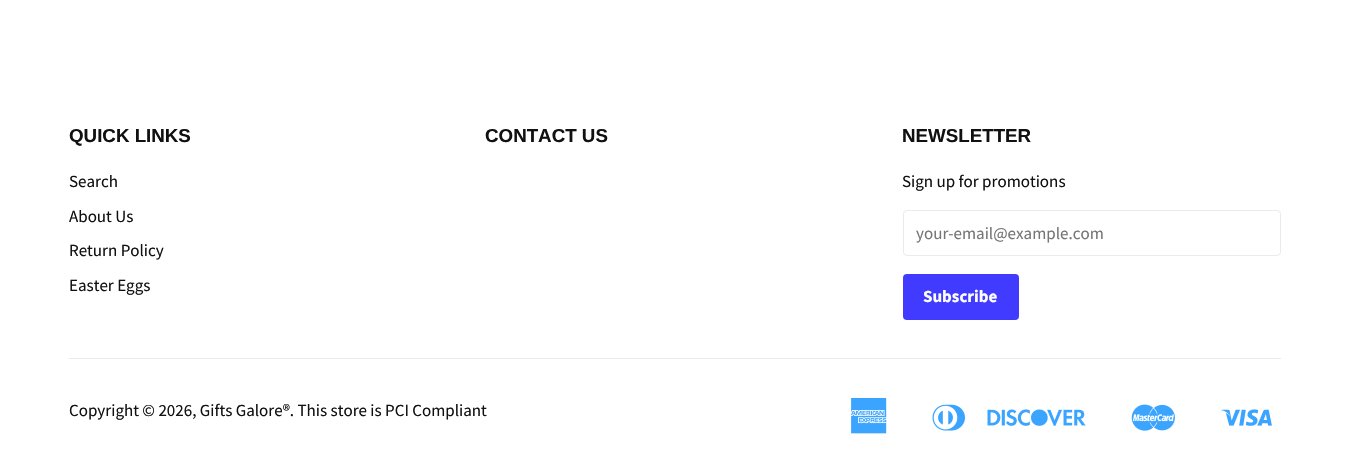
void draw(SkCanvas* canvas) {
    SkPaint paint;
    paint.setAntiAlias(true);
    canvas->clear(0xFFFFFFFF);
    SkFont font1(fontMgr->matchFamilyStyle("Liberation Sans", SkFontStyle::Bold()), 18.75f);
    font1.setSubpixel(true);
    paint.setColor(0xFF111111);
    canvas->drawString("QUICK LINKS", 69, 142, font1, paint);
    SkFont font2(fontMgr->matchFamilyStyle("Source Sans Pro", SkFontStyle::Normal()), 17);
    font2.setSubpixel(true);
    canvas->drawString("Search", 69, 187, font2, paint);
    canvas->drawString("About Us", 69, 222, font2, paint);
    canvas->drawString("Return Policy", 69, 256, font2, paint);
    canvas->drawString("Easter Eggs", 69, 291, font2, paint);
    canvas->drawString("CONTACT US", 485, 142, font1, paint);
    canvas->drawString("NEWSLETTER", 902, 142, font1, paint);
    canvas->drawString("Sign up for promotions", 902, 187, font2, paint);
    paint.setStyle(SkPaint::kStroke_Style);
    paint.setStrokeWidth(1);
    paint.setColor(0xFFEAEAEA);
    canvas->drawRoundRect(SkRect::MakeXYWH(903.5f, 210.5f, 377, 45), 3.5f, 3.5f, paint);
    paint.setStyle(SkPaint::kFill_Style);
    paint.setColor(0xFF757575);
    canvas->drawString("your-email@example.com", 916, 239, font2, paint);
    paint.setColor(0xFF403BFF);
    canvas->drawRoundRect(SkRect::MakeXYWH(903, 274, 116, 46), 4, 4, paint);
    SkFont font3(fontMgr->matchFamilyStyle("Source Sans Pro", SkFontStyle::Bold()), 17);
    font3.setSubpixel(true);
    paint.setColor(0xFFFFFFFF);
    canvas->drawString("Subscribe", 923, 302, font3, paint);
    paint.setColor(0xFFEAEAEA);
    canvas->drawRect(SkRect::MakeXYWH(69, 358, 1212, 1), paint);
    paint.setColor(0xFF111111);
    canvas->drawString("Copyright © 2026, Gifts Galore®. This store is PCI Compliant", 69, 416, font2, paint);
    canvas->drawImageRect(SkImages::DeferredFromEncodedData(SkData::MakeFromFileName("img1.png")), SkRect::MakeXYWH(851, 398, 36, 36), SkSamplingOptions());
    canvas->drawImageRect(SkImages::DeferredFromEncodedData(SkData::MakeFromFileName("img2.png")), SkRect::MakeXYWH(932, 404, 33, 27), SkSamplingOptions());
    canvas->drawImageRect(SkImages::DeferredFromEncodedData(SkData::MakeFromFileName("img3.png")), SkRect::MakeXYWH(987, 409, 99, 17), SkSamplingOptions());
    canvas->drawImageRect(SkImages::DeferredFromEncodedData(SkData::MakeFromFileName("img4.png")), SkRect::MakeXYWH(1131, 404, 44, 27), SkSamplingOptions());
    canvas->drawImageRect(SkImages::DeferredFromEncodedData(SkData::MakeFromFileName("img5.png")), SkRect::MakeXYWH(1221, 409, 51, 17), SkSamplingOptions());
}
